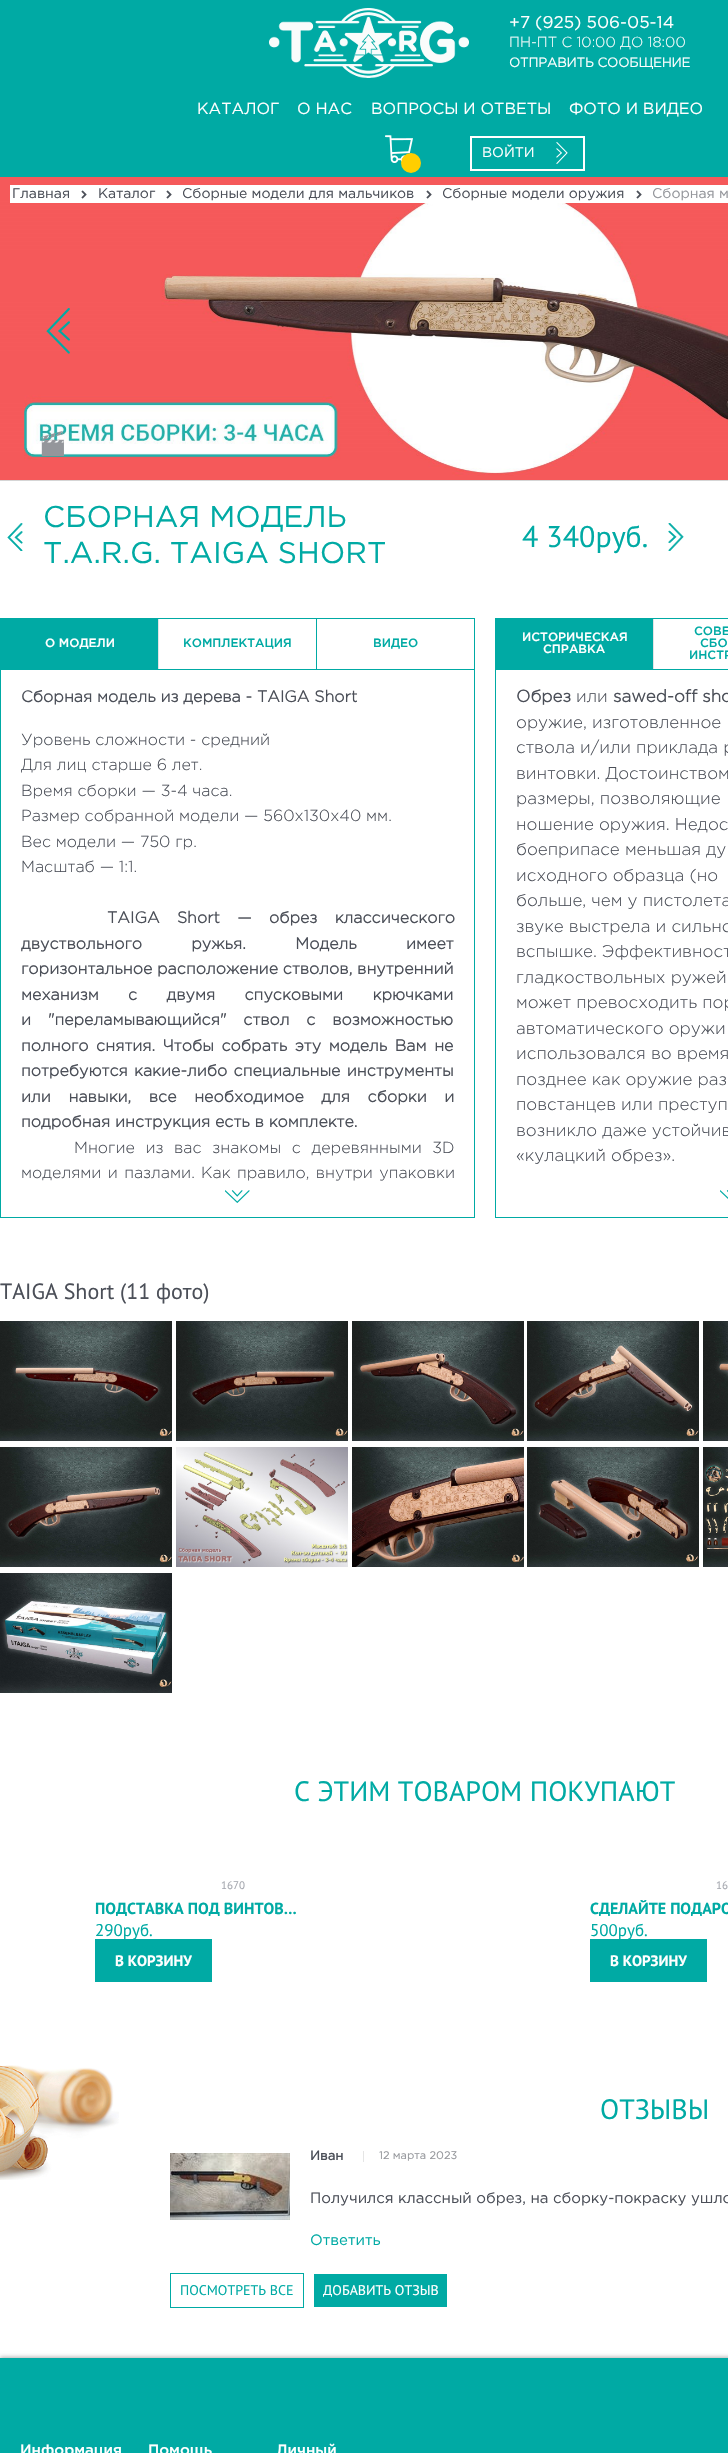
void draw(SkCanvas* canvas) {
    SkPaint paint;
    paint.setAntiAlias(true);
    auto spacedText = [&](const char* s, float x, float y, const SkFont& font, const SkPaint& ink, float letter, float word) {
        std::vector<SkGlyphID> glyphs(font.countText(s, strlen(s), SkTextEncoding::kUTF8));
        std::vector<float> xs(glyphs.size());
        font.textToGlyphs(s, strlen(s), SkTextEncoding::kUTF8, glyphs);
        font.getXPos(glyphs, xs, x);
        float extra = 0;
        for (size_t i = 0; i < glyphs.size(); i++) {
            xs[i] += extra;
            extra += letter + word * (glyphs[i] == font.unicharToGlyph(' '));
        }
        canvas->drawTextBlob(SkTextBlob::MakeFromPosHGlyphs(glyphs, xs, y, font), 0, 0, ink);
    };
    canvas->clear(0xFFFFFFFF);
    paint.setColor(0xFF00AAA4);
    canvas->drawRect(SkRect::MakeXYWH(0, 0, 728, 177), paint);
    canvas->drawImageRect(SkImages::DeferredFromEncodedData(SkData::MakeFromFileName("img1.png")), SkRect::MakeXYWH(269, 8, 200, 70), SkSamplingOptions());
    SkFont font1(fontMgr->matchFamilyStyle("Gotham", SkFontStyle::Normal()), 17);
    font1.setSubpixel(true);
    paint.setColor(0xFFFFFFFF);
    canvas->drawString("+7 (925) 506-05-14", 509, 28, font1, paint);
    SkFont font2(fontMgr->matchFamilyStyle("Gotham", SkFontStyle(300, SkFontStyle::kNormal_Width, SkFontStyle::kUpright_Slant)), 14.5f);
    font2.setSubpixel(true);
    canvas->drawString("ПН-ПТ С 10:00 ДО 18:00", 509, 47, font2, paint);
    SkFont font3(fontMgr->matchFamilyStyle("Gotham", SkFontStyle::Bold()), 13);
    font3.setSubpixel(true);
    canvas->drawString("ОТПРАВИТЬ СООБЩЕНИЕ", 509, 67, font3, paint);
    SkFont font4(fontMgr->matchFamilyStyle("Gotham", SkFontStyle::Normal()), 16);
    font4.setSubpixel(true);
    canvas->drawString("КАТАЛОГ", 197, 114, font4, paint);
    canvas->drawString("О НАС", 297, 114, font4, paint);
    canvas->drawString("ВОПРОСЫ И ОТВЕТЫ", 371, 114, font4, paint);
    canvas->drawString("ФОТО И ВИДЕО", 569, 114, font4, paint);
    canvas->drawImageRect(SkImages::DeferredFromEncodedData(SkData::MakeFromFileName("img2.png")), SkRect::MakeXYWH(385, 135, 28, 28), SkSamplingOptions());
    paint.setColor(0xFFFFCE00);
    canvas->drawCircle(411, 163, 10, paint);
    paint.setStyle(SkPaint::kStroke_Style);
    paint.setStrokeWidth(2);
    paint.setColor(0xFFFFFFFF);
    canvas->drawRect(SkRect::MakeXYWH(471, 137, 113, 33), paint);
    SkFont font5(fontMgr->matchFamilyStyle("Gotham", SkFontStyle::Normal()), 14);
    font5.setSubpixel(true);
    paint.setStyle(SkPaint::kFill_Style);
    canvas->drawString("ВОЙТИ", 482, 157, font5, paint);
    canvas->drawImageRect(SkImages::DeferredFromEncodedData(SkData::MakeFromFileName("img3.png")), SkRect::MakeXYWH(556, 142, 12, 22), SkSamplingOptions());
    canvas->drawImageRect(SkImages::DeferredFromEncodedData(SkData::MakeFromFileName("img5.png")), SkRect::MakeXYWH(0, 177, 728, 303), SkSamplingOptions());
    canvas->drawRect(SkRect::MakeXYWH(10, 185, 718, 18), paint);
    paint.setColor(0xFF4B4F58);
    canvas->drawString("Главная", 12, 198, font5, paint);
    canvas->drawImageRect(SkImages::DeferredFromEncodedData(SkData::MakeFromFileName("img4.png")), SkRect::MakeXYWH(81, 190, 6, 9), SkSamplingOptions());
    canvas->drawString("Каталог", 98, 198, font5, paint);
    canvas->drawImageRect(SkImages::DeferredFromEncodedData(SkData::MakeFromFileName("img4.png")), SkRect::MakeXYWH(166, 190, 6, 9), SkSamplingOptions());
    canvas->drawString("Сборные модели для мальчиков", 182, 198, font5, paint);
    canvas->drawImageRect(SkImages::DeferredFromEncodedData(SkData::MakeFromFileName("img4.png")), SkRect::MakeXYWH(426, 190, 6, 9), SkSamplingOptions());
    canvas->drawString("Сборные модели оружия", 442, 198, font5, paint);
    canvas->drawImageRect(SkImages::DeferredFromEncodedData(SkData::MakeFromFileName("img4.png")), SkRect::MakeXYWH(636, 190, 6, 9), SkSamplingOptions());
    paint.setColor(0xFF94969B);
    canvas->drawString("Сборная м", 652, 198, font5, paint);
    paint.setColor(0xFFD5D5D5);
    canvas->drawRect(SkRect::MakeXYWH(0, 480, 728, 1), paint);
    canvas->drawImageRect(SkImages::DeferredFromEncodedData(SkData::MakeFromFileName("img6.png")), SkRect::MakeXYWH(46, 308, 24, 46), SkSamplingOptions());
    canvas->drawImageRect(SkImages::DeferredFromEncodedData(SkData::MakeFromFileName("img7.png")), SkRect::MakeXYWH(41, 431, 23, 25), SkSamplingOptions());
    canvas->drawImageRect(SkImages::DeferredFromEncodedData(SkData::MakeFromFileName("img8.png")), SkRect::MakeXYWH(7, 523, 16, 28), SkSamplingOptions());
    SkFont font6(fontMgr->matchFamilyStyle("Gotham", SkFontStyle::Normal()), 30);
    font6.setSubpixel(true);
    paint.setColor(0xFF00AAA4);
    canvas->drawString("СБОРНАЯ МОДЕЛЬ", 43, 527, font6, paint);
    canvas->drawString("T.A.R.G. TAIGA SHORT", 43, 563, font6, paint);
    SkFont font7(fontMgr->matchFamilyStyle("PT Sans", SkFontStyle::Normal()), 30);
    font7.setSubpixel(true);
    canvas->drawString("4 340руб.", 522, 547, font7, paint);
    canvas->drawImageRect(SkImages::DeferredFromEncodedData(SkData::MakeFromFileName("img9.png")), SkRect::MakeXYWH(668, 523, 16, 28), SkSamplingOptions());
    paint.setStyle(SkPaint::kStroke_Style);
    paint.setStrokeWidth(1);
    canvas->drawRect(SkRect::MakeXYWH(0.5f, 618.5f, 474, 599), paint);
    paint.setStyle(SkPaint::kFill_Style);
    canvas->drawRect(SkRect::MakeXYWH(1, 669, 473, 1), paint);
    canvas->drawRect(SkRect::MakeXYWH(1, 619, 157, 50), paint);
    paint.setColor(0xFFE2E3E4);
    canvas->drawRect(SkRect::MakeXYWH(158, 619, 1, 50), paint);
    SkFont font8(fontMgr->matchFamilyStyle("Gotham", SkFontStyle(500, SkFontStyle::kNormal_Width, SkFontStyle::kUpright_Slant)), 12);
    font8.setSubpixel(true);
    paint.setColor(0xFFFFFFFF);
    canvas->drawString("О МОДЕЛИ", 45, 647, font8, paint);
    paint.setColor(0xFF00AAA4);
    canvas->drawRect(SkRect::MakeXYWH(316, 619, 1, 50), paint);
    canvas->drawString("КОМПЛЕКТАЦИЯ", 183, 647, font8, paint);
    canvas->drawString("ВИДЕО", 373, 647, font8, paint);
    SkFont font9(fontMgr->matchFamilyStyle("Gotham", SkFontStyle::Bold()), 16);
    font9.setSubpixel(true);
    paint.setColor(0xFF4B4F58);
    canvas->drawString("Сборная модель из дерева - TAIGA Short", 21, 702, font9, paint);
    SkFont font10(fontMgr->matchFamilyStyle("Gotham", SkFontStyle(300, SkFontStyle::kNormal_Width, SkFontStyle::kUpright_Slant)), 16);
    font10.setSubpixel(true);
    canvas->drawString("Уровень сложности - средний", 21, 745, font10, paint);
    canvas->drawString("Для лиц старше 6 лет.", 21, 770, font10, paint);
    canvas->drawString("Время сборки — 3-4 часа.", 21, 796, font10, paint);
    canvas->drawString("Размер собранной модели — 560х130х40 мм.", 21, 821, font10, paint);
    canvas->drawString("Вес модели — 750 гр.", 21, 847, font10, paint);
    canvas->drawString("Масштаб — 1:1.", 21, 872, font10, paint);
    spacedText("TAIGA Short — обрез классического", 107, 923, font9, paint, 0, 12.5f);
    spacedText("двуствольного ружья. Модель имеет", 21, 949, font9, paint, 0, 44.5f);
    canvas->drawString("горизонтальное расположение стволов, внутренний", 21, 974, font9, paint);
    spacedText("механизм с двумя спусковыми крючками", 21, 1000, font9, paint, 0, 24.5f);
    spacedText("и \"переламывающийся\" ствол с возможностью", 21, 1025, font9, paint, 0, 12);
    spacedText("полного снятия. Чтобы собрать эту модель Вам не", 21, 1051, font9, paint, 0, 2.75f);
    spacedText("потребуются какие-либо специальные инструменты", 21, 1076, font9, paint, 0, 1.5f);
    spacedText("или навыки, все необходимое для сборки и", 21, 1102, font9, paint, 0, 12.75f);
    canvas->drawString("подробная инструкция есть в комплекте.", 21, 1127, font9, paint);
    spacedText("Многие из вас знакомы с деревянными 3D", 74, 1153, font10, paint, 0, 5.75f);
    spacedText("моделями и пазлами. Как правило, внутри упаковки", 21, 1178, font10, paint, 0, 1.5f);
    canvas->drawImageRect(SkImages::DeferredFromEncodedData(SkData::MakeFromFileName("img10.png")), SkRect::MakeXYWH(225, 1190, 25, 13), SkSamplingOptions());
    paint.setStyle(SkPaint::kStroke_Style);
    paint.setColor(0xFF00AAA4);
    canvas->drawRect(SkRect::MakeXYWH(495.5f, 618.5f, 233, 599), paint);
    paint.setStyle(SkPaint::kFill_Style);
    canvas->drawRect(SkRect::MakeXYWH(496, 669, 232, 1), paint);
    canvas->drawRect(SkRect::MakeXYWH(496, 619, 157, 50), paint);
    paint.setColor(0xFFE2E3E4);
    canvas->drawRect(SkRect::MakeXYWH(653, 619, 1, 50), paint);
    paint.setColor(0xFFFFFFFF);
    canvas->drawString("ИСТОРИЧЕСКАЯ", 522, 641, font8, paint);
    canvas->drawString("СПРАВКА", 543, 653, font8, paint);
    paint.setColor(0xFF00AAA4);
    canvas->drawString("СОВЕ", 694, 635, font8, paint);
    canvas->drawString("СБО", 700, 647, font8, paint);
    canvas->drawString("ИНСТР", 689, 659, font8, paint);
    SkFont font11(fontMgr->matchFamilyStyle("Gotham", SkFontStyle::Bold()), 17);
    font11.setSubpixel(true);
    paint.setColor(0xFF4B4F58);
    canvas->drawString("Обрез", 516, 702, font11, paint);
    SkFont font12(fontMgr->matchFamilyStyle("Gotham", SkFontStyle(300, SkFontStyle::kNormal_Width, SkFontStyle::kUpright_Slant)), 17);
    font12.setSubpixel(true);
    canvas->drawString("или", 576, 702, font12, paint);
    canvas->drawString("sawed-off sho", 613, 702, font11, paint);
    canvas->drawString("оружие, изготовленное", 516, 728, font12, paint);
    canvas->drawString("ствола и/или приклада р", 516, 753, font12, paint);
    canvas->drawString("винтовки. Достоинством", 516, 779, font12, paint);
    canvas->drawString("размеры, позволяющие", 516, 804, font12, paint);
    canvas->drawString("ношение оружия. Недос", 516, 830, font12, paint);
    canvas->drawString("боеприпасе меньшая ду", 516, 855, font12, paint);
    canvas->drawString("исходного образца (но", 516, 881, font12, paint);
    canvas->drawString("больше, чем у пистолета", 516, 906, font12, paint);
    canvas->drawString("звуке выстрела и сильно", 516, 932, font12, paint);
    canvas->drawString("вспышке. Эффективност", 516, 957, font12, paint);
    canvas->drawString("гладкоствольных ружей", 516, 983, font12, paint);
    canvas->drawString("может превосходить пор", 516, 1008, font12, paint);
    canvas->drawString("автоматического оружи", 516, 1034, font12, paint);
    canvas->drawString("использовался во время", 516, 1059, font12, paint);
    canvas->drawString("позднее как оружие раз", 516, 1085, font12, paint);
    canvas->drawString("повстанцев или преступ", 516, 1110, font12, paint);
    canvas->drawString("возникло даже устойчив", 516, 1136, font12, paint);
    canvas->drawString("«кулацкий обрез».", 516, 1161, font12, paint);
    canvas->drawImageRect(SkImages::DeferredFromEncodedData(SkData::MakeFromFileName("img11.png")), SkRect::MakeXYWH(720, 1190, 8, 9), SkSamplingOptions());
    SkFont font13(fontMgr->matchFamilyStyle("PT Sans", SkFontStyle::Normal()), 22);
    font13.setSubpixel(true);
    canvas->drawString("TAIGA Short (11 фото)", 0, 1299, font13, paint);
    canvas->drawImageRect(SkImages::DeferredFromEncodedData(SkData::MakeFromFileName("img12.png")), SkRect::MakeXYWH(0, 1321, 172, 120), SkSamplingOptions());
    canvas->drawImageRect(SkImages::DeferredFromEncodedData(SkData::MakeFromFileName("img13.png")), SkRect::MakeXYWH(176, 1321, 172, 120), SkSamplingOptions());
    canvas->drawImageRect(SkImages::DeferredFromEncodedData(SkData::MakeFromFileName("img14.png")), SkRect::MakeXYWH(352, 1321, 172, 120), SkSamplingOptions());
    canvas->drawImageRect(SkImages::DeferredFromEncodedData(SkData::MakeFromFileName("img15.png")), SkRect::MakeXYWH(527, 1321, 172, 120), SkSamplingOptions());
    canvas->drawImageRect(SkImages::DeferredFromEncodedData(SkData::MakeFromFileName("img16.png")), SkRect::MakeXYWH(703, 1321, 25, 120), SkSamplingOptions());
    canvas->drawImageRect(SkImages::DeferredFromEncodedData(SkData::MakeFromFileName("img17.png")), SkRect::MakeXYWH(0, 1447, 172, 120), SkSamplingOptions());
    canvas->drawImageRect(SkImages::DeferredFromEncodedData(SkData::MakeFromFileName("img18.png")), SkRect::MakeXYWH(176, 1447, 172, 120), SkSamplingOptions());
    canvas->drawImageRect(SkImages::DeferredFromEncodedData(SkData::MakeFromFileName("img19.png")), SkRect::MakeXYWH(352, 1447, 172, 120), SkSamplingOptions());
    canvas->drawImageRect(SkImages::DeferredFromEncodedData(SkData::MakeFromFileName("img20.png")), SkRect::MakeXYWH(527, 1447, 172, 120), SkSamplingOptions());
    canvas->drawImageRect(SkImages::DeferredFromEncodedData(SkData::MakeFromFileName("img21.png")), SkRect::MakeXYWH(703, 1447, 25, 120), SkSamplingOptions());
    canvas->drawImageRect(SkImages::DeferredFromEncodedData(SkData::MakeFromFileName("img22.png")), SkRect::MakeXYWH(0, 1573, 172, 120), SkSamplingOptions());
    SkFont font14(fontMgr->matchFamilyStyle("PT Sans", SkFontStyle::Normal()), 28);
    font14.setSubpixel(true);
    paint.setColor(0xFF00AAA4);
    canvas->drawString("С ЭТИМ ТОВАРОМ ПОКУПАЮТ", 294, 1801, font14, paint);
    SkFont font15(fontMgr->matchFamilyStyle("PT Sans", SkFontStyle::Normal()), 11);
    font15.setSubpixel(true);
    paint.setColor(0xFFA5A8AF);
    canvas->drawString("1670", 221, 1889, font15, paint);
    SkFont font16(fontMgr->matchFamilyStyle("PT Sans", SkFontStyle::Bold()), 16);
    font16.setSubpixel(true);
    paint.setColor(0xFF00AAA4);
    canvas->drawString("ПОДСТАВКА ПОД ВИНТОВ…", 95, 1914, font16, paint);
    SkFont font17(fontMgr->matchFamilyStyle("PT Sans", SkFontStyle::Normal()), 17);
    font17.setSubpixel(true);
    canvas->drawString("290руб.", 95, 1936, font17, paint);
    canvas->drawRect(SkRect::MakeXYWH(95, 1939, 117, 43), paint);
    SkFont font18(fontMgr->matchFamilyStyle("PT Sans", SkFontStyle::Bold()), 15);
    font18.setSubpixel(true);
    paint.setColor(0xFFFFFFFF);
    canvas->drawString("В КОРЗИНУ", 115, 1966, font18, paint);
    paint.setColor(0xFFA5A8AF);
    canvas->drawString("16", 716, 1889, font15, paint);
    paint.setColor(0xFF00AAA4);
    canvas->drawString("СДЕЛАЙТЕ ПОДАРО", 590, 1914, font16, paint);
    canvas->drawString("500руб.", 590, 1936, font17, paint);
    canvas->drawRect(SkRect::MakeXYWH(590, 1939, 117, 43), paint);
    paint.setColor(0xFFFFFFFF);
    canvas->drawString("В КОРЗИНУ", 610, 1966, font18, paint);
    canvas->drawImageRect(SkImages::DeferredFromEncodedData(SkData::MakeFromFileName("img23.png")), SkRect::MakeXYWH(0, 2065, 119, 115), SkSamplingOptions());
    paint.setColor(0xFF00AAA4);
    canvas->drawString("ОТЗЫВЫ", 600, 2119, font14, paint);
    canvas->drawImageRect(SkImages::DeferredFromEncodedData(SkData::MakeFromFileName("img24.png")), SkRect::MakeXYWH(170, 2153, 120, 67), SkSamplingOptions());
    SkFont font19(fontMgr->matchFamilyStyle("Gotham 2", SkFontStyle::Bold()), 13);
    font19.setSubpixel(true);
    paint.setColor(0xFF4B4F58);
    canvas->drawString("Иван", 310, 2160, font19, paint);
    paint.setColor(0xFFE5E5E5);
    canvas->drawRect(SkRect::MakeXYWH(363, 2151, 1, 11), paint);
    SkFont font20(fontMgr->matchFamilyStyle("Gotham", SkFontStyle::Normal()), 11);
    font20.setSubpixel(true);
    paint.setColor(0xFF94969B);
    canvas->drawString("12 марта 2023", 379, 2159, font20, paint);
    SkFont font21(fontMgr->matchFamilyStyle("Gotham", SkFontStyle::Normal()), 15);
    font21.setSubpixel(true);
    paint.setColor(0xFF4B4F58);
    canvas->drawString("Получился классный обрез, на сборку-покраску ушло", 310, 2203, font21, paint);
    paint.setColor(0xFF00AAA4);
    canvas->drawString("Ответить", 310, 2245, font21, paint);
    paint.setStyle(SkPaint::kStroke_Style);
    canvas->drawRect(SkRect::MakeXYWH(170.5f, 2273.5f, 133, 34), paint);
    SkFont font22(fontMgr->matchFamilyStyle("PT Sans", SkFontStyle::Normal()), 14);
    font22.setSubpixel(true);
    paint.setStyle(SkPaint::kFill_Style);
    canvas->drawString("ПОСМОТРЕТЬ ВСЕ", 180, 2295, font22, paint);
    canvas->drawRect(SkRect::MakeXYWH(314, 2274, 133, 33), paint);
    paint.setColor(0xFFFFFFFF);
    canvas->drawString("ДОБАВИТЬ ОТЗЫВ", 323, 2295, font22, paint);
    paint.setColor(0x4D010101);
    paint.setMaskFilter(SkMaskFilter::MakeBlur(kNormal_SkBlurStyle, 2));
    canvas->drawRect(SkRect::MakeXYWH(0, 2357, 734, 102), paint);
    paint.setMaskFilter(nullptr);
    paint.setColor(0xFF00AAA4);
    canvas->drawRect(SkRect::MakeXYWH(0, 2358, 728, 95), paint);
    SkFont font23(fontMgr->matchFamilyStyle("Gotham", SkFontStyle(500, SkFontStyle::kNormal_Width, SkFontStyle::kUpright_Slant)), 15);
    font23.setSubpixel(true);
    paint.setColor(0xFFFFFFFF);
    canvas->drawString("Информация", 20, 2455, font23, paint);
    canvas->drawString("Помощь", 148, 2455, font23, paint);
    canvas->drawString("Личный", 276, 2455, font23, paint);
}
